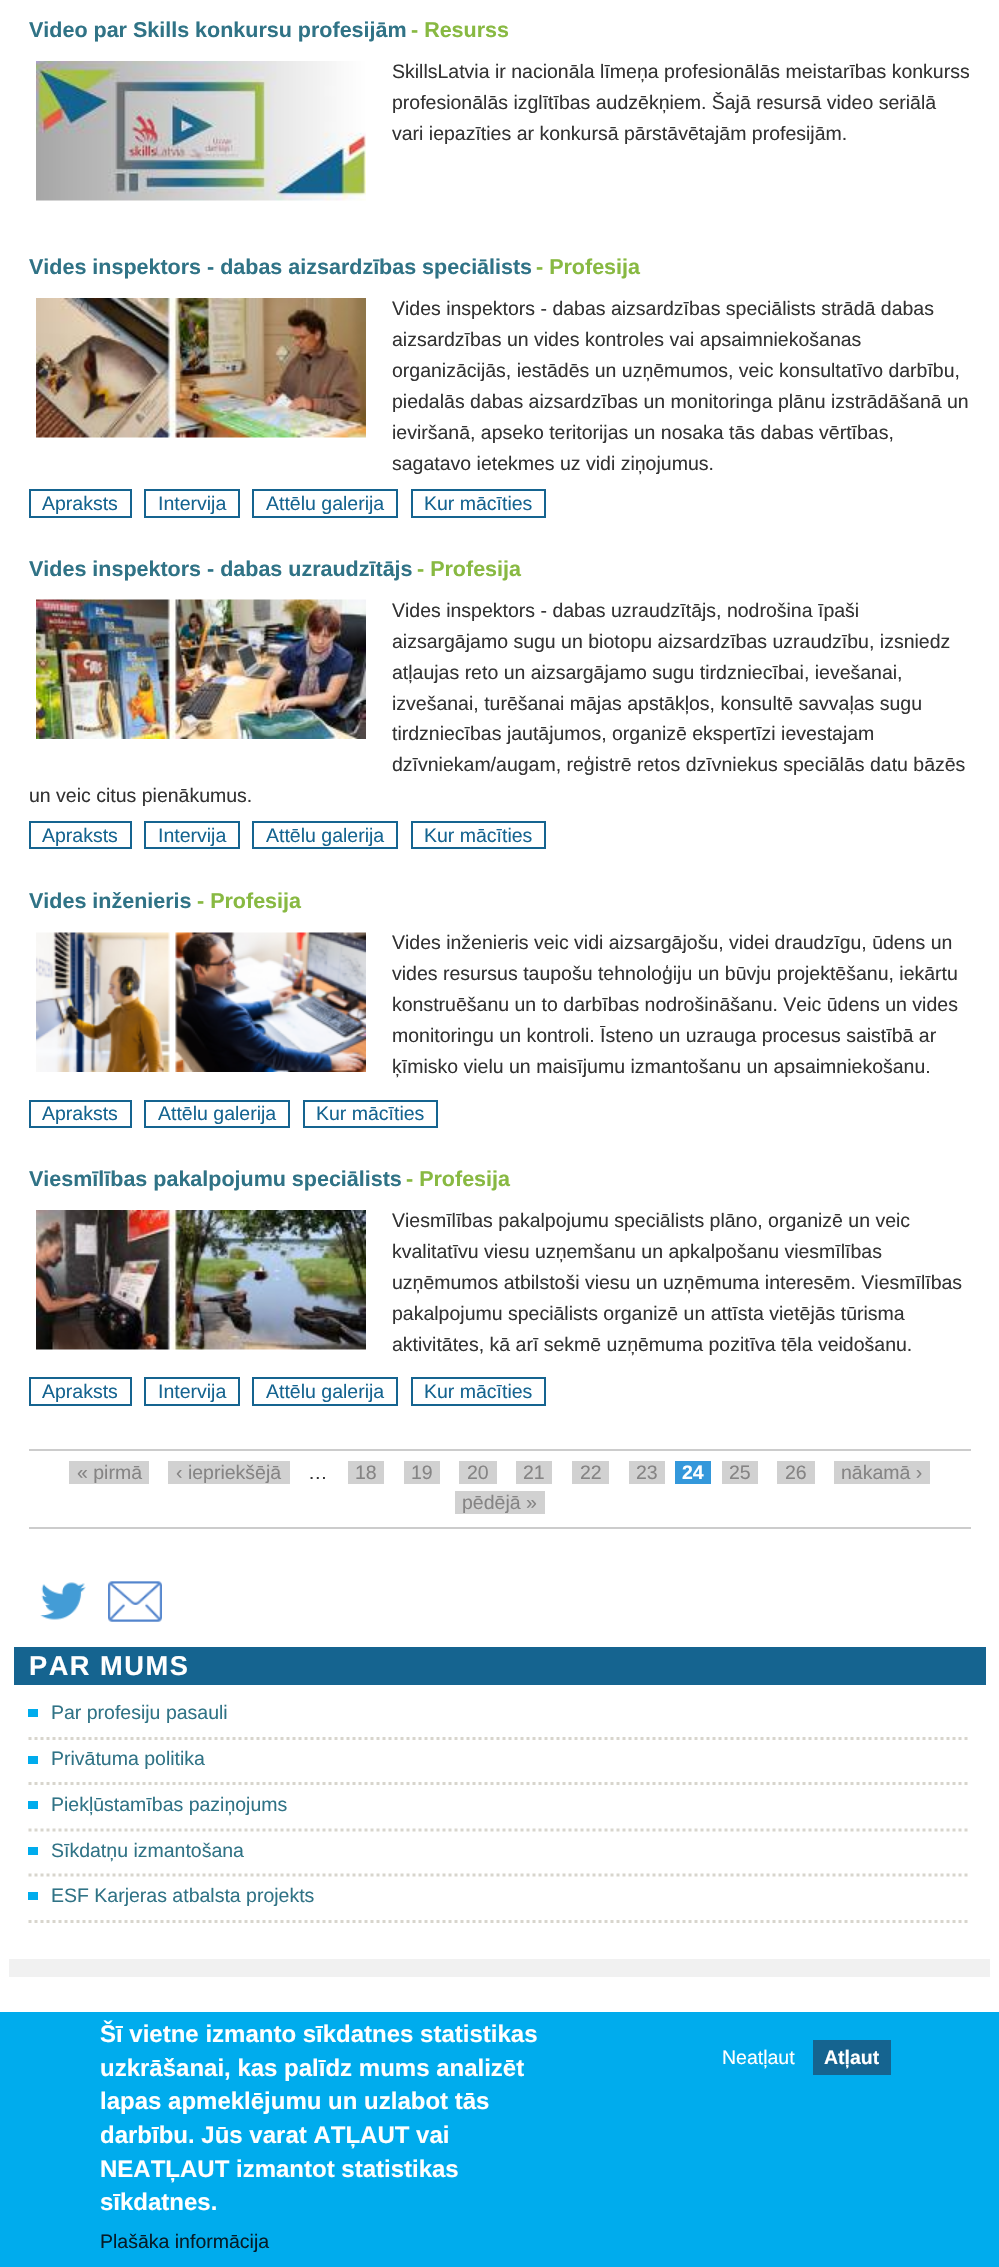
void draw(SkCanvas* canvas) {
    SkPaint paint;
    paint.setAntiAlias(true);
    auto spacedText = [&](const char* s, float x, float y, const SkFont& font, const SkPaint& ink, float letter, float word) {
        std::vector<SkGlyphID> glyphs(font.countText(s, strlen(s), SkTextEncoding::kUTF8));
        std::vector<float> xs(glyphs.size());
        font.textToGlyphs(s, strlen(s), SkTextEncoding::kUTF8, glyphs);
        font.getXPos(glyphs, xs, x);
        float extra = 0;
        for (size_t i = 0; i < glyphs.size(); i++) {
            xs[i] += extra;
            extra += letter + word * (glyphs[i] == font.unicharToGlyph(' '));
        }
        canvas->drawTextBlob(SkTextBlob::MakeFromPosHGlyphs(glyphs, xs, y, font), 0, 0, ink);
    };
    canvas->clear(0xFFFFFFFF);
    SkFont font1(fontMgr->matchFamilyStyle("Liberation Sans", SkFontStyle::Bold()), 21.5f);
    font1.setSubpixel(true);
    paint.setColor(0xFF307386);
    canvas->drawString("Video par Skills konkursu profesijām", 29, 37, font1, paint);
    paint.setColor(0xFF88B942);
    canvas->drawString("- Resurss", 411, 37, font1, paint);
    canvas->drawImageRect(SkImages::DeferredFromEncodedData(SkData::MakeFromFileName("img1.png")), SkRect::MakeXYWH(36, 61, 330, 140), SkSamplingOptions());
    SkFont font2(fontMgr->matchFamilyStyle("Liberation Sans", SkFontStyle::Normal()), 19.5f);
    font2.setSubpixel(true);
    paint.setColor(0xFF333333);
    canvas->drawString("SkillsLatvia ir nacionāla līmeņa profesionālās meistarības konkurss", 392, 78, font2, paint);
    canvas->drawString("profesionālās izglītības audzēkņiem. Šajā resursā video seriālā", 392, 109, font2, paint);
    canvas->drawString("vari iepazīties ar konkursā pārstāvētajām profesijām.", 392, 140, font2, paint);
    paint.setColor(0xFF307386);
    canvas->drawString("Vides inspektors - dabas aizsardzības speciālists", 29, 274, font1, paint);
    paint.setColor(0xFF88B942);
    canvas->drawString("- Profesija", 536, 274, font1, paint);
    canvas->drawImageRect(SkImages::DeferredFromEncodedData(SkData::MakeFromFileName("img2.png")), SkRect::MakeXYWH(36, 298, 330, 140), SkSamplingOptions());
    paint.setColor(0xFF333333);
    canvas->drawString("Vides inspektors - dabas aizsardzības speciālists strādā dabas", 392, 315, font2, paint);
    canvas->drawString("aizsardzības un vides kontroles vai apsaimniekošanas", 392, 346, font2, paint);
    canvas->drawString("organizācijās, iestādēs un uzņēmumos, veic konsultatīvo darbību,", 392, 377, font2, paint);
    canvas->drawString("piedalās dabas aizsardzības un monitoringa plānu izstrādāšanā un", 392, 408, font2, paint);
    canvas->drawString("ieviršanā, apseko teritorijas un nosaka tās dabas vērtības,", 392, 439, font2, paint);
    canvas->drawString("sagatavo ietekmes uz vidi ziņojumus.", 392, 470, font2, paint);
    paint.setStyle(SkPaint::kStroke_Style);
    paint.setStrokeWidth(2);
    paint.setColor(0xFF156490);
    canvas->drawRect(SkRect::MakeXYWH(30, 490, 101, 27), paint);
    paint.setStyle(SkPaint::kFill_Style);
    canvas->drawString("Apraksts", 42, 510, font2, paint);
    paint.setStyle(SkPaint::kStroke_Style);
    canvas->drawRect(SkRect::MakeXYWH(145, 490, 94, 27), paint);
    paint.setStyle(SkPaint::kFill_Style);
    canvas->drawString("Intervija", 158, 510, font2, paint);
    paint.setStyle(SkPaint::kStroke_Style);
    canvas->drawRect(SkRect::MakeXYWH(253, 490, 144, 27), paint);
    paint.setStyle(SkPaint::kFill_Style);
    canvas->drawString("Attēlu galerija", 266, 510, font2, paint);
    paint.setStyle(SkPaint::kStroke_Style);
    canvas->drawRect(SkRect::MakeXYWH(412, 490, 133, 27), paint);
    paint.setStyle(SkPaint::kFill_Style);
    canvas->drawString("Kur mācīties", 424, 510, font2, paint);
    paint.setColor(0xFF307386);
    canvas->drawString("Vides inspektors - dabas uzraudzītājs", 29, 576, font1, paint);
    paint.setColor(0xFF88B942);
    canvas->drawString("- Profesija", 417, 576, font1, paint);
    canvas->drawImageRect(SkImages::DeferredFromEncodedData(SkData::MakeFromFileName("img3.png")), SkRect::MakeXYWH(36, 599, 330, 140), SkSamplingOptions());
    paint.setColor(0xFF333333);
    canvas->drawString("Vides inspektors - dabas uzraudzītājs, nodrošina īpaši", 392, 617, font2, paint);
    canvas->drawString("aizsargājamo sugu un biotopu aizsardzības uzraudzību, izsniedz", 392, 648, font2, paint);
    canvas->drawString("atļaujas reto un aizsargājamo sugu tirdzniecībai, ievešanai,", 392, 679, font2, paint);
    canvas->drawString("izvešanai, turēšanai mājas apstākļos, konsultē savvaļas sugu", 392, 710, font2, paint);
    canvas->drawString("tirdzniecības jautājumos, organizē ekspertīzi ievestajam", 392, 740, font2, paint);
    canvas->drawString("dzīvniekam/augam, reģistrē retos dzīvniekus speciālās datu bāzēs", 392, 771, font2, paint);
    canvas->drawString("un veic citus pienākumus.", 29, 802, font2, paint);
    paint.setStyle(SkPaint::kStroke_Style);
    paint.setColor(0xFF156490);
    canvas->drawRect(SkRect::MakeXYWH(30, 822, 101, 26), paint);
    paint.setStyle(SkPaint::kFill_Style);
    canvas->drawString("Apraksts", 42, 842, font2, paint);
    paint.setStyle(SkPaint::kStroke_Style);
    canvas->drawRect(SkRect::MakeXYWH(145, 822, 94, 26), paint);
    paint.setStyle(SkPaint::kFill_Style);
    canvas->drawString("Intervija", 158, 842, font2, paint);
    paint.setStyle(SkPaint::kStroke_Style);
    canvas->drawRect(SkRect::MakeXYWH(253, 822, 144, 26), paint);
    paint.setStyle(SkPaint::kFill_Style);
    canvas->drawString("Attēlu galerija", 266, 842, font2, paint);
    paint.setStyle(SkPaint::kStroke_Style);
    canvas->drawRect(SkRect::MakeXYWH(412, 822, 133, 26), paint);
    paint.setStyle(SkPaint::kFill_Style);
    canvas->drawString("Kur mācīties", 424, 842, font2, paint);
    paint.setColor(0xFF307386);
    canvas->drawString("Vides inženieris", 29, 908, font1, paint);
    paint.setColor(0xFF88B942);
    canvas->drawString("- Profesija", 197, 908, font1, paint);
    canvas->drawImageRect(SkImages::DeferredFromEncodedData(SkData::MakeFromFileName("img4.png")), SkRect::MakeXYWH(36, 932, 330, 140), SkSamplingOptions());
    paint.setColor(0xFF333333);
    canvas->drawString("Vides inženieris veic vidi aizsargājošu, videi draudzīgu, ūdens un", 392, 949, font2, paint);
    canvas->drawString("vides resursus taupošu tehnoloģiju un būvju projektēšanu, iekārtu", 392, 980, font2, paint);
    canvas->drawString("konstruēšanu un to darbības nodrošināšanu. Veic ūdens un vides", 392, 1011, font2, paint);
    canvas->drawString("monitoringu un kontroli. Īsteno un uzrauga procesus saistībā ar", 392, 1042, font2, paint);
    canvas->drawString("ķīmisko vielu un maisījumu izmantošanu un apsaimniekošanu.", 392, 1073, font2, paint);
    paint.setStyle(SkPaint::kStroke_Style);
    paint.setColor(0xFF156490);
    canvas->drawRect(SkRect::MakeXYWH(30, 1101, 101, 26), paint);
    paint.setStyle(SkPaint::kFill_Style);
    canvas->drawString("Apraksts", 42, 1120, font2, paint);
    paint.setStyle(SkPaint::kStroke_Style);
    canvas->drawRect(SkRect::MakeXYWH(145, 1101, 144, 26), paint);
    paint.setStyle(SkPaint::kFill_Style);
    canvas->drawString("Attēlu galerija", 158, 1120, font2, paint);
    paint.setStyle(SkPaint::kStroke_Style);
    canvas->drawRect(SkRect::MakeXYWH(304, 1101, 133, 26), paint);
    paint.setStyle(SkPaint::kFill_Style);
    canvas->drawString("Kur mācīties", 316, 1120, font2, paint);
    paint.setColor(0xFF307386);
    canvas->drawString("Viesmīlības pakalpojumu speciālists", 29, 1186, font1, paint);
    paint.setColor(0xFF88B942);
    canvas->drawString("- Profesija", 406, 1186, font1, paint);
    canvas->drawImageRect(SkImages::DeferredFromEncodedData(SkData::MakeFromFileName("img5.png")), SkRect::MakeXYWH(36, 1210, 330, 140), SkSamplingOptions());
    paint.setColor(0xFF333333);
    canvas->drawString("Viesmīlības pakalpojumu speciālists plāno, organizē un veic", 392, 1227, font2, paint);
    canvas->drawString("kvalitatīvu viesu uzņemšanu un apkalpošanu viesmīlības", 392, 1258, font2, paint);
    canvas->drawString("uzņēmumos atbilstoši viesu un uzņēmuma interesēm. Viesmīlības", 392, 1289, font2, paint);
    canvas->drawString("pakalpojumu speciālists organizē un attīsta vietējās tūrisma", 392, 1320, font2, paint);
    canvas->drawString("aktivitātes, kā arī sekmē uzņēmuma pozitīva tēla veidošanu.", 392, 1351, font2, paint);
    paint.setStyle(SkPaint::kStroke_Style);
    paint.setColor(0xFF156490);
    canvas->drawRect(SkRect::MakeXYWH(30, 1378, 101, 27), paint);
    paint.setStyle(SkPaint::kFill_Style);
    canvas->drawString("Apraksts", 42, 1398, font2, paint);
    paint.setStyle(SkPaint::kStroke_Style);
    canvas->drawRect(SkRect::MakeXYWH(145, 1378, 94, 27), paint);
    paint.setStyle(SkPaint::kFill_Style);
    canvas->drawString("Intervija", 158, 1398, font2, paint);
    paint.setStyle(SkPaint::kStroke_Style);
    canvas->drawRect(SkRect::MakeXYWH(253, 1378, 144, 27), paint);
    paint.setStyle(SkPaint::kFill_Style);
    canvas->drawString("Attēlu galerija", 266, 1398, font2, paint);
    paint.setStyle(SkPaint::kStroke_Style);
    canvas->drawRect(SkRect::MakeXYWH(412, 1378, 133, 27), paint);
    paint.setStyle(SkPaint::kFill_Style);
    canvas->drawString("Kur mācīties", 424, 1398, font2, paint);
    paint.setColor(0xFFCCCCCC);
    canvas->drawRect(SkRect::MakeXYWH(29, 1449, 942, 2), paint);
    canvas->drawRect(SkRect::MakeXYWH(29, 1527, 942, 2), paint);
    paint.setColor(0xFFD1D1D1);
    canvas->drawRect(SkRect::MakeXYWH(69, 1461, 80, 23), paint);
    paint.setColor(0xFF858484);
    canvas->drawString("« pirmā", 77, 1479, font2, paint);
    paint.setColor(0xFFD1D1D1);
    canvas->drawRect(SkRect::MakeXYWH(168, 1461, 122, 23), paint);
    paint.setColor(0xFF858484);
    canvas->drawString("‹ iepriekšējā", 176, 1479, font2, paint);
    paint.setColor(0xFF333333);
    canvas->drawString("…", 308, 1479, font2, paint);
    paint.setColor(0xFFD1D1D1);
    canvas->drawRect(SkRect::MakeXYWH(348, 1461, 36, 23), paint);
    paint.setColor(0xFF858484);
    canvas->drawString("18", 355, 1479, font2, paint);
    paint.setColor(0xFFD1D1D1);
    canvas->drawRect(SkRect::MakeXYWH(404, 1461, 36, 23), paint);
    paint.setColor(0xFF858484);
    canvas->drawString("19", 411, 1479, font2, paint);
    paint.setColor(0xFFD1D1D1);
    canvas->drawRect(SkRect::MakeXYWH(459, 1461, 38, 23), paint);
    paint.setColor(0xFF858484);
    canvas->drawString("20", 467, 1479, font2, paint);
    paint.setColor(0xFFD1D1D1);
    canvas->drawRect(SkRect::MakeXYWH(516, 1461, 36, 23), paint);
    paint.setColor(0xFF858484);
    canvas->drawString("21", 523, 1479, font2, paint);
    paint.setColor(0xFFD1D1D1);
    canvas->drawRect(SkRect::MakeXYWH(572, 1461, 37, 23), paint);
    paint.setColor(0xFF858484);
    canvas->drawString("22", 580, 1479, font2, paint);
    paint.setColor(0xFFD1D1D1);
    canvas->drawRect(SkRect::MakeXYWH(629, 1461, 36, 23), paint);
    paint.setColor(0xFF858484);
    canvas->drawString("23", 636, 1479, font2, paint);
    paint.setColor(0xFF3498DB);
    canvas->drawRect(SkRect::MakeXYWH(675, 1461, 36, 23), paint);
    SkFont font3(fontMgr->matchFamilyStyle("Liberation Sans", SkFontStyle::Bold()), 19.5f);
    font3.setSubpixel(true);
    paint.setColor(0xFFFFFFFF);
    canvas->drawString("24", 682, 1479, font3, paint);
    paint.setColor(0xFFD1D1D1);
    canvas->drawRect(SkRect::MakeXYWH(722, 1461, 36, 23), paint);
    paint.setColor(0xFF858484);
    canvas->drawString("25", 729, 1479, font2, paint);
    paint.setColor(0xFFD1D1D1);
    canvas->drawRect(SkRect::MakeXYWH(777, 1461, 38, 23), paint);
    paint.setColor(0xFF858484);
    canvas->drawString("26", 785, 1479, font2, paint);
    paint.setColor(0xFFD1D1D1);
    canvas->drawRect(SkRect::MakeXYWH(834, 1461, 96, 23), paint);
    paint.setColor(0xFF858484);
    canvas->drawString("nākamā ›", 841, 1479, font2, paint);
    paint.setColor(0xFFD1D1D1);
    canvas->drawRect(SkRect::MakeXYWH(455, 1491, 90, 23), paint);
    paint.setColor(0xFF858484);
    canvas->drawString("pēdējā »", 462, 1509, font2, paint);
    canvas->drawImageRect(SkImages::DeferredFromEncodedData(SkData::MakeFromFileName("img6.png")), SkRect::MakeXYWH(40, 1582, 46, 38), SkSamplingOptions());
    canvas->drawImageRect(SkImages::DeferredFromEncodedData(SkData::MakeFromFileName("img7.png")), SkRect::MakeXYWH(108, 1581, 54, 41), SkSamplingOptions());
    paint.setColor(0xFF156490);
    canvas->drawRect(SkRect::MakeXYWH(14, 1647, 972, 38), paint);
    SkFont font4(fontMgr->matchFamilyStyle("Liberation Sans", SkFontStyle::Bold()), 27.25f);
    font4.setSubpixel(true);
    paint.setColor(0xFFFFFFFF);
    spacedText("PAR MUMS", 29, 1675, font4, paint, 1.5f, 0);
    paint.setColor(0xFF00ACED);
    canvas->drawRect(SkRect::MakeXYWH(28, 1709, 10, 8), paint);
    paint.setStyle(SkPaint::kStroke_Style);
    paint.setStrokeWidth(3);
    paint.setColor(0xFFD8D5CD);
    paint.setPathEffect(SkDashPathEffect::Make({{3, 3}}, 0));
    canvas->drawPath(SkPathBuilder().moveTo(28.5f, 1738.5f).lineTo(970.5f, 1738.5f).detach(), paint);
    paint.setPathEffect(nullptr);
    paint.setStyle(SkPaint::kFill_Style);
    paint.setColor(0xFF307386);
    canvas->drawString("Par profesiju pasauli", 51, 1719, font2, paint);
    paint.setColor(0xFF00ACED);
    canvas->drawRect(SkRect::MakeXYWH(28, 1756, 10, 8), paint);
    paint.setStyle(SkPaint::kStroke_Style);
    paint.setColor(0xFFD8D5CD);
    paint.setPathEffect(SkDashPathEffect::Make({{3, 3}}, 0));
    canvas->drawPath(SkPathBuilder().moveTo(28.5f, 1783.5f).lineTo(970.5f, 1783.5f).detach(), paint);
    paint.setPathEffect(nullptr);
    paint.setStyle(SkPaint::kFill_Style);
    paint.setColor(0xFF307386);
    canvas->drawString("Privātuma politika", 51, 1765, font2, paint);
    paint.setColor(0xFF00ACED);
    canvas->drawRect(SkRect::MakeXYWH(28, 1801, 10, 8), paint);
    paint.setStyle(SkPaint::kStroke_Style);
    paint.setColor(0xFFD8D5CD);
    paint.setPathEffect(SkDashPathEffect::Make({{3, 3}}, 0));
    canvas->drawPath(SkPathBuilder().moveTo(28.5f, 1830).lineTo(970.5f, 1830).detach(), paint);
    paint.setPathEffect(nullptr);
    paint.setStyle(SkPaint::kFill_Style);
    paint.setColor(0xFF307386);
    canvas->drawString("Piekļūstamības paziņojums", 51, 1811, font2, paint);
    paint.setColor(0xFF00ACED);
    canvas->drawRect(SkRect::MakeXYWH(28, 1847, 10, 8), paint);
    paint.setStyle(SkPaint::kStroke_Style);
    paint.setColor(0xFFD8D5CD);
    paint.setPathEffect(SkDashPathEffect::Make({{3, 3}}, 0));
    canvas->drawPath(SkPathBuilder().moveTo(28.5f, 1875).lineTo(970.5f, 1875).detach(), paint);
    paint.setPathEffect(nullptr);
    paint.setStyle(SkPaint::kFill_Style);
    paint.setColor(0xFF307386);
    canvas->drawString("Sīkdatņu izmantošana", 51, 1857, font2, paint);
    paint.setColor(0xFF00ACED);
    canvas->drawRect(SkRect::MakeXYWH(28, 1892, 10, 8), paint);
    paint.setStyle(SkPaint::kStroke_Style);
    paint.setColor(0xFFD8D5CD);
    paint.setPathEffect(SkDashPathEffect::Make({{3, 3}}, 0));
    canvas->drawPath(SkPathBuilder().moveTo(28.5f, 1921.5f).lineTo(970.5f, 1921.5f).detach(), paint);
    paint.setPathEffect(nullptr);
    paint.setStyle(SkPaint::kFill_Style);
    paint.setColor(0xFF307386);
    canvas->drawString("ESF Karjeras atbalsta projekts", 51, 1902, font2, paint);
    paint.setColor(0xFFF1F1F1);
    canvas->drawRect(SkRect::MakeXYWH(9, 1959, 981, 18), paint);
    paint.setColor(0xFF00ACED);
    canvas->drawRect(SkRect::MakeXYWH(0, 2012, 999, 255), paint);
    SkFont font5(fontMgr->matchFamilyStyle("Liberation Sans", SkFontStyle::Bold()), 24);
    font5.setSubpixel(true);
    paint.setColor(0xFFFFFFFF);
    canvas->drawString("Šī vietne izmanto sīkdatnes statistikas", 100, 2042, font5, paint);
    canvas->drawString("uzkrāšanai, kas palīdz mums analizēt", 100, 2076, font5, paint);
    canvas->drawString("lapas apmeklējumu un uzlabot tās", 100, 2109, font5, paint);
    canvas->drawString("darbību. Jūs varat ATĻAUT vai", 100, 2143, font5, paint);
    canvas->drawString("NEATĻAUT izmantot statistikas", 100, 2177, font5, paint);
    canvas->drawString("sīkdatnes.", 100, 2210, font5, paint);
    paint.setColor(0xFF061B27);
    canvas->drawString("Plašāka informācija", 100, 2248, font2, paint);
    paint.setColor(0xFFFFFFFF);
    canvas->drawString("Neatļaut", 722, 2064, font2, paint);
    paint.setColor(0xFF156490);
    canvas->drawRect(SkRect::MakeXYWH(813, 2040, 78, 35), paint);
    paint.setColor(0xFFFFFFFF);
    canvas->drawString("Atļaut", 824, 2064, font3, paint);
}
